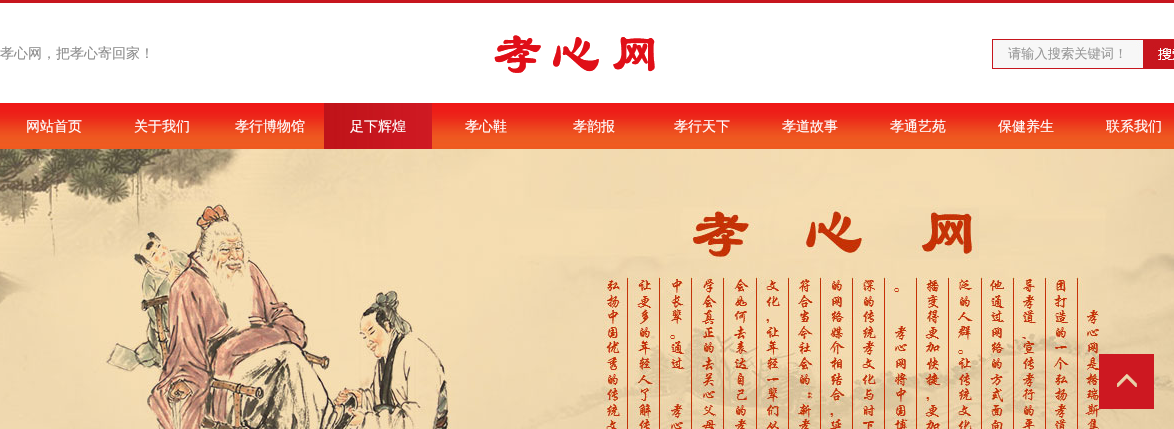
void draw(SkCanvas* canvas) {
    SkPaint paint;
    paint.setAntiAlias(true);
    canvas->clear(0xFFFFFFFF);
    paint.setColor(0xFFC7161E);
    canvas->drawRect(SkRect::MakeXYWH(0, 0, 1174, 3), paint);
    SkFont font1(fontMgr->matchFamilyStyle("WenQuanYi Zen Hei", SkFontStyle(500, SkFontStyle::kNormal_Width, SkFontStyle::kUpright_Slant)), 14);
    font1.setSubpixel(true);
    paint.setColor(0xFF8D8D8D);
    canvas->drawString("孝心网，把孝心寄回家！", 0, 58, font1, paint);
    canvas->drawImageRect(SkImages::DeferredFromEncodedData(SkData::MakeFromFileName("img1.png")), SkRect::MakeXYWH(494, 35, 161, 38), SkSamplingOptions());
    canvas->drawImageRect(SkImages::DeferredFromEncodedData(SkData::MakeFromFileName("img2.png")), SkRect::MakeXYWH(992, 39, 182, 30), SkSamplingOptions());
    SkFont font2(fontMgr->matchFamilyStyle("WenQuanYi Zen Hei", SkFontStyle(500, SkFontStyle::kNormal_Width, SkFontStyle::kUpright_Slant)), 13.25f);
    font2.setSubpixel(true);
    paint.setColor(0xFF999999);
    canvas->drawString("请输入搜索关键词！", 1008, 58, font2, paint);
    canvas->drawImageRect(SkImages::DeferredFromEncodedData(SkData::MakeFromFileName("img3.png")), SkRect::MakeXYWH(0, 103, 1174, 46), SkSamplingOptions());
    paint.setColor(0xFFFFFFFF);
    canvas->drawString("网站首页", 26, 131, font1, paint);
    canvas->drawString("关于我们", 134, 131, font1, paint);
    canvas->drawString("孝行博物馆", 235, 131, font1, paint);
    canvas->drawImageRect(SkImages::DeferredFromEncodedData(SkData::MakeFromFileName("img4.png")), SkRect::MakeXYWH(324, 103, 108, 46), SkSamplingOptions());
    canvas->drawString("足下辉煌", 350, 131, font1, paint);
    canvas->drawString("孝心鞋", 465, 131, font1, paint);
    canvas->drawString("孝韵报", 573, 131, font1, paint);
    canvas->drawString("孝行天下", 674, 131, font1, paint);
    canvas->drawString("孝道故事", 782, 131, font1, paint);
    canvas->drawString("孝通艺苑", 890, 131, font1, paint);
    canvas->drawString("保健养生", 998, 131, font1, paint);
    canvas->drawString("联系我们", 1106, 131, font1, paint);
    canvas->drawImageRect(SkImages::DeferredFromEncodedData(SkData::MakeFromFileName("img5.png")), SkRect::MakeXYWH(0, 149, 1174, 280), SkSamplingOptions());
    canvas->drawImageRect(SkImages::DeferredFromEncodedData(SkData::MakeFromFileName("img6.png")), SkRect::MakeXYWH(1099, 354, 55, 55), SkSamplingOptions());
}
